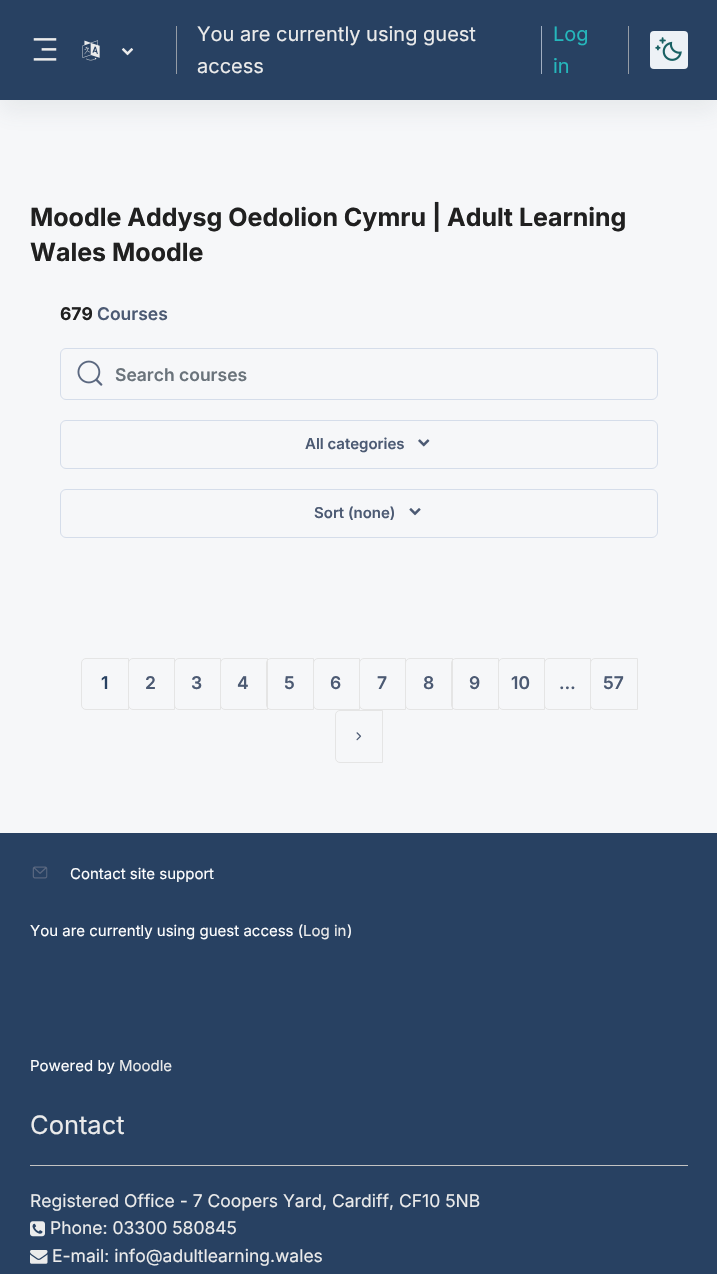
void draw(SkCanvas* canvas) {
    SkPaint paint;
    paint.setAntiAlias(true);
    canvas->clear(0xFFF6F7F9);
    paint.setColor(0x1A5C6B79);
    paint.setMaskFilter(SkMaskFilter::MakeBlur(kNormal_SkBlurStyle, 11));
    canvas->drawRect(SkRect::MakeXYWH(0, 11, 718, 100), paint);
    paint.setMaskFilter(nullptr);
    paint.setColor(0xFF284162);
    canvas->drawRect(SkRect::MakeXYWH(0, 0, 717, 100), paint);
    canvas->drawImageRect(SkImages::DeferredFromEncodedData(SkData::MakeFromFileName("img1.png")), SkRect::MakeXYWH(33, 38, 24, 23), SkSamplingOptions());
    canvas->drawImageRect(SkImages::DeferredFromEncodedData(SkData::MakeFromFileName("img2.png")), SkRect::MakeXYWH(82, 40, 18, 21), SkSamplingOptions());
    canvas->drawImageRect(SkImages::DeferredFromEncodedData(SkData::MakeFromFileName("img3.png")), SkRect::MakeXYWH(121, 48, 13, 8), SkSamplingOptions());
    paint.setColor(0xFF959CA6);
    canvas->drawRect(SkRect::MakeXYWH(176, 26, 1, 48), paint);
    SkFont font1(fontMgr->matchFamilyStyle("Inter", SkFontStyle::Normal()), 20);
    font1.setSubpixel(true);
    paint.setColor(0xFFEBEBEB);
    canvas->drawString("You are currently using guest", 197, 41, font1, paint);
    paint.setColor(0xFFA1AEC1);
    canvas->drawRect(SkRect::MakeXYWH(541, 26, 1, 48), paint);
    paint.setColor(0xFF25B7BC);
    canvas->drawString("Log", 553, 41, font1, paint);
    canvas->drawString("in", 553, 73, font1, paint);
    paint.setColor(0xFFEBEBEB);
    canvas->drawString("access", 197, 73, font1, paint);
    paint.setColor(0xFF959CA6);
    canvas->drawRect(SkRect::MakeXYWH(628, 26, 1, 48), paint);
    paint.setColor(0xFFEDF1F6);
    canvas->drawRoundRect(SkRect::MakeXYWH(650, 31, 38, 38), 4, 4, paint);
    canvas->drawImageRect(SkImages::DeferredFromEncodedData(SkData::MakeFromFileName("img4.png")), SkRect::MakeXYWH(655, 37, 27, 24), SkSamplingOptions());
    SkFont font2(fontMgr->matchFamilyStyle("Inter", SkFontStyle::Bold()), 25);
    font2.setSubpixel(true);
    paint.setColor(0xFF202020);
    canvas->drawString("Moodle Addysg Oedolion Cymru | Adult Learning", 30, 226, font2, paint);
    canvas->drawString("Wales Moodle", 30, 261, font2, paint);
    SkFont font3(fontMgr->matchFamilyStyle("Inter", SkFontStyle::Bold()), 17.5f);
    font3.setSubpixel(true);
    canvas->drawString("679", 60, 320, font3, paint);
    SkFont font4(fontMgr->matchFamilyStyle("Inter", SkFontStyle(600, SkFontStyle::kNormal_Width, SkFontStyle::kUpright_Slant)), 17.5f);
    font4.setSubpixel(true);
    paint.setColor(0xFF4C5A73);
    canvas->drawString("Courses", 97, 320, font4, paint);
    paint.setStyle(SkPaint::kStroke_Style);
    paint.setStrokeWidth(1);
    paint.setColor(0xFFD5DDEA);
    canvas->drawRoundRect(SkRect::MakeXYWH(60.5f, 348.5f, 597, 51), 5.5f, 5.5f, paint);
    canvas->drawImageRect(SkImages::DeferredFromEncodedData(SkData::MakeFromFileName("img5.png")), SkRect::MakeXYWH(77, 360, 26, 26), SkSamplingOptions());
    paint.setStyle(SkPaint::kFill_Style);
    paint.setColor(0xFF6A737B);
    canvas->drawString("Search courses", 115, 381, font4, paint);
    paint.setStyle(SkPaint::kStroke_Style);
    paint.setColor(0xFFD5DDEA);
    canvas->drawRoundRect(SkRect::MakeXYWH(60.5f, 420.5f, 597, 48), 5.5f, 5.5f, paint);
    SkFont font5(fontMgr->matchFamilyStyle("Inter", SkFontStyle(600, SkFontStyle::kNormal_Width, SkFontStyle::kUpright_Slant)), 15);
    font5.setSubpixel(true);
    paint.setStyle(SkPaint::kFill_Style);
    paint.setColor(0xFF4C5A73);
    canvas->drawString("All categories", 305, 449, font5, paint);
    canvas->drawImageRect(SkImages::DeferredFromEncodedData(SkData::MakeFromFileName("img6.png")), SkRect::MakeXYWH(418, 439, 12, 8), SkSamplingOptions());
    paint.setStyle(SkPaint::kStroke_Style);
    paint.setColor(0xFFD5DDEA);
    canvas->drawRoundRect(SkRect::MakeXYWH(60.5f, 489.5f, 597, 48), 5.5f, 5.5f, paint);
    paint.setStyle(SkPaint::kFill_Style);
    paint.setColor(0xFF4C5A73);
    canvas->drawString("Sort (none)", 314, 518, font5, paint);
    canvas->drawImageRect(SkImages::DeferredFromEncodedData(SkData::MakeFromFileName("img7.png")), SkRect::MakeXYWH(409, 508, 12, 8), SkSamplingOptions());
    paint.setStyle(SkPaint::kStroke_Style);
    paint.setColor(0xFFE5E5E5);
    canvas->drawPath(SkPathBuilder().moveTo(86, 658.5f).lineTo(128.5f, 658.5f).lineTo(128.5f, 709.5f).lineTo(86, 709.5f).cubicTo(83.5f, 709.5f, 81.5f, 707.5f, 81.5f, 705).lineTo(81.5f, 663).cubicTo(81.5f, 660.5f, 83.5f, 658.5f, 86, 658.5f).close().detach(), paint);
    paint.setStyle(SkPaint::kFill_Style);
    paint.setColor(0xFF284162);
    canvas->drawString("1", 101, 689, font4, paint);
    paint.setStyle(SkPaint::kStroke_Style);
    paint.setColor(0xFFE5E5E5);
    canvas->drawPath(SkPathBuilder().moveTo(133, 658.5f).lineTo(174.5f, 658.5f).lineTo(174.5f, 709.5f).lineTo(133, 709.5f).cubicTo(130.5f, 709.5f, 128.5f, 707.5f, 128.5f, 705).lineTo(128.5f, 663).cubicTo(128.5f, 660.5f, 130.5f, 658.5f, 133, 658.5f).close().detach(), paint);
    paint.setStyle(SkPaint::kFill_Style);
    paint.setColor(0xFF4C5A73);
    canvas->drawString("2", 145, 689, font4, paint);
    paint.setStyle(SkPaint::kStroke_Style);
    paint.setColor(0xFFE5E5E5);
    canvas->drawPath(SkPathBuilder().moveTo(179, 658.5f).lineTo(220.5f, 658.5f).lineTo(220.5f, 709.5f).lineTo(179, 709.5f).cubicTo(176.5f, 709.5f, 174.5f, 707.5f, 174.5f, 705).lineTo(174.5f, 663).cubicTo(174.5f, 660.5f, 176.5f, 658.5f, 179, 658.5f).close().detach(), paint);
    paint.setStyle(SkPaint::kFill_Style);
    paint.setColor(0xFF4C5A73);
    canvas->drawString("3", 191, 689, font4, paint);
    paint.setStyle(SkPaint::kStroke_Style);
    paint.setColor(0xFFE5E5E5);
    canvas->drawPath(SkPathBuilder().moveTo(225, 658.5f).lineTo(267.5f, 658.5f).lineTo(267.5f, 709.5f).lineTo(225, 709.5f).cubicTo(222.5f, 709.5f, 220.5f, 707.5f, 220.5f, 705).lineTo(220.5f, 663).cubicTo(220.5f, 660.5f, 222.5f, 658.5f, 225, 658.5f).close().detach(), paint);
    paint.setStyle(SkPaint::kFill_Style);
    paint.setColor(0xFF4C5A73);
    canvas->drawString("4", 237, 689, font4, paint);
    paint.setStyle(SkPaint::kStroke_Style);
    paint.setColor(0xFFE5E5E5);
    canvas->drawPath(SkPathBuilder().moveTo(271, 658.5f).lineTo(313.5f, 658.5f).lineTo(313.5f, 709.5f).lineTo(271, 709.5f).cubicTo(268.5f, 709.5f, 266.5f, 707.5f, 266.5f, 705).lineTo(266.5f, 663).cubicTo(266.5f, 660.5f, 268.5f, 658.5f, 271, 658.5f).close().detach(), paint);
    paint.setStyle(SkPaint::kFill_Style);
    paint.setColor(0xFF4C5A73);
    canvas->drawString("5", 284, 689, font4, paint);
    paint.setStyle(SkPaint::kStroke_Style);
    paint.setColor(0xFFE5E5E5);
    canvas->drawPath(SkPathBuilder().moveTo(318, 658.5f).lineTo(359.5f, 658.5f).lineTo(359.5f, 709.5f).lineTo(318, 709.5f).cubicTo(315.5f, 709.5f, 313.5f, 707.5f, 313.5f, 705).lineTo(313.5f, 663).cubicTo(313.5f, 660.5f, 315.5f, 658.5f, 318, 658.5f).close().detach(), paint);
    paint.setStyle(SkPaint::kFill_Style);
    paint.setColor(0xFF4C5A73);
    canvas->drawString("6", 330, 689, font4, paint);
    paint.setStyle(SkPaint::kStroke_Style);
    paint.setColor(0xFFE5E5E5);
    canvas->drawPath(SkPathBuilder().moveTo(364, 658.5f).lineTo(405.5f, 658.5f).lineTo(405.5f, 709.5f).lineTo(364, 709.5f).cubicTo(361.5f, 709.5f, 359.5f, 707.5f, 359.5f, 705).lineTo(359.5f, 663).cubicTo(359.5f, 660.5f, 361.5f, 658.5f, 364, 658.5f).close().detach(), paint);
    paint.setStyle(SkPaint::kFill_Style);
    paint.setColor(0xFF4C5A73);
    canvas->drawString("7", 377, 689, font4, paint);
    paint.setStyle(SkPaint::kStroke_Style);
    paint.setColor(0xFFE5E5E5);
    canvas->drawPath(SkPathBuilder().moveTo(410, 658.5f).lineTo(452.5f, 658.5f).lineTo(452.5f, 709.5f).lineTo(410, 709.5f).cubicTo(407.5f, 709.5f, 405.5f, 707.5f, 405.5f, 705).lineTo(405.5f, 663).cubicTo(405.5f, 660.5f, 407.5f, 658.5f, 410, 658.5f).close().detach(), paint);
    paint.setStyle(SkPaint::kFill_Style);
    paint.setColor(0xFF4C5A73);
    canvas->drawString("8", 423, 689, font4, paint);
    paint.setStyle(SkPaint::kStroke_Style);
    paint.setColor(0xFFE5E5E5);
    canvas->drawPath(SkPathBuilder().moveTo(456, 658.5f).lineTo(498.5f, 658.5f).lineTo(498.5f, 709.5f).lineTo(456, 709.5f).cubicTo(453.5f, 709.5f, 451.5f, 707.5f, 451.5f, 705).lineTo(451.5f, 663).cubicTo(451.5f, 660.5f, 453.5f, 658.5f, 456, 658.5f).close().detach(), paint);
    paint.setStyle(SkPaint::kFill_Style);
    paint.setColor(0xFF4C5A73);
    canvas->drawString("9", 469, 689, font4, paint);
    paint.setStyle(SkPaint::kStroke_Style);
    paint.setColor(0xFFE5E5E5);
    canvas->drawPath(SkPathBuilder().moveTo(503, 658.5f).lineTo(544.5f, 658.5f).lineTo(544.5f, 709.5f).lineTo(503, 709.5f).cubicTo(500.5f, 709.5f, 498.5f, 707.5f, 498.5f, 705).lineTo(498.5f, 663).cubicTo(498.5f, 660.5f, 500.5f, 658.5f, 503, 658.5f).close().detach(), paint);
    paint.setStyle(SkPaint::kFill_Style);
    paint.setColor(0xFF4C5A73);
    canvas->drawString("10", 511, 689, font4, paint);
    paint.setStyle(SkPaint::kStroke_Style);
    paint.setColor(0xFFE5E5E5);
    canvas->drawPath(SkPathBuilder().moveTo(549, 658.5f).lineTo(590.5f, 658.5f).lineTo(590.5f, 709.5f).lineTo(549, 709.5f).cubicTo(546.5f, 709.5f, 544.5f, 707.5f, 544.5f, 705).lineTo(544.5f, 663).cubicTo(544.5f, 660.5f, 546.5f, 658.5f, 549, 658.5f).close().detach(), paint);
    paint.setStyle(SkPaint::kFill_Style);
    paint.setColor(0xFF4C5A73);
    canvas->drawString("…", 559, 689, font4, paint);
    paint.setStyle(SkPaint::kStroke_Style);
    paint.setColor(0xFFE5E5E5);
    canvas->drawPath(SkPathBuilder().moveTo(595, 658.5f).lineTo(637.5f, 658.5f).lineTo(637.5f, 709.5f).lineTo(595, 709.5f).cubicTo(592.5f, 709.5f, 590.5f, 707.5f, 590.5f, 705).lineTo(590.5f, 663).cubicTo(590.5f, 660.5f, 592.5f, 658.5f, 595, 658.5f).close().detach(), paint);
    paint.setStyle(SkPaint::kFill_Style);
    paint.setColor(0xFF4C5A73);
    canvas->drawString("57", 603, 689, font4, paint);
    paint.setStyle(SkPaint::kStroke_Style);
    paint.setColor(0xFFE5E5E5);
    canvas->drawPath(SkPathBuilder().moveTo(340, 710.5f).lineTo(382.5f, 710.5f).lineTo(382.5f, 762.5f).lineTo(340, 762.5f).cubicTo(337.5f, 762.5f, 335.5f, 760.5f, 335.5f, 758).lineTo(335.5f, 715).cubicTo(335.5f, 712.5f, 337.5f, 710.5f, 340, 710.5f).close().detach(), paint);
    canvas->drawImageRect(SkImages::DeferredFromEncodedData(SkData::MakeFromFileName("img8.png")), SkRect::MakeXYWH(356, 732, 6, 9), SkSamplingOptions());
    paint.setStyle(SkPaint::kFill_Style);
    paint.setColor(0xFF284162);
    canvas->drawRect(SkRect::MakeXYWH(0, 833, 717, 441), paint);
    canvas->drawImageRect(SkImages::DeferredFromEncodedData(SkData::MakeFromFileName("img9.png")), SkRect::MakeXYWH(32, 866, 16, 13), SkSamplingOptions());
    SkFont font6(fontMgr->matchFamilyStyle("Inter", SkFontStyle::Normal()), 15);
    font6.setSubpixel(true);
    paint.setColor(0xFFFFFFFF);
    canvas->drawString("Contact site support", 70, 879, font6, paint);
    canvas->drawString("You are currently using guest access (", 30, 936, font6, paint);
    paint.setColor(0xFFEBEBEB);
    canvas->drawString("Log in", 303, 936, font6, paint);
    paint.setColor(0xFFFFFFFF);
    canvas->drawString(")", 347, 936, font6, paint);
    canvas->drawString("Powered by", 30, 1071, font6, paint);
    paint.setColor(0xFFEBEBEB);
    canvas->drawString("Moodle", 119, 1071, font6, paint);
    SkFont font7(fontMgr->matchFamilyStyle("Inter", SkFontStyle::Normal()), 25.5f);
    font7.setSubpixel(true);
    canvas->drawString("Contact", 30, 1134, font7, paint);
    paint.setColor(0xFFC3C3C3);
    canvas->drawRect(SkRect::MakeXYWH(30, 1165, 658, 1), paint);
    SkFont font8(fontMgr->matchFamilyStyle("Inter", SkFontStyle::Normal()), 17.5f);
    font8.setSubpixel(true);
    paint.setColor(0xFFEBEBEB);
    canvas->drawString("Registered Office - 7 Coopers Yard, Cardiff, CF10 5NB", 30, 1207, font8, paint);
    canvas->drawImageRect(SkImages::DeferredFromEncodedData(SkData::MakeFromFileName("img10.png")), SkRect::MakeXYWH(30, 1221, 15, 16), SkSamplingOptions());
    canvas->drawString("Phone: 03300 580845", 50, 1234, font8, paint);
    canvas->drawImageRect(SkImages::DeferredFromEncodedData(SkData::MakeFromFileName("img11.png")), SkRect::MakeXYWH(30, 1250, 18, 14), SkSamplingOptions());
    canvas->drawString("E-mail: info@adultlearning.wales", 52, 1262, font8, paint);
}
